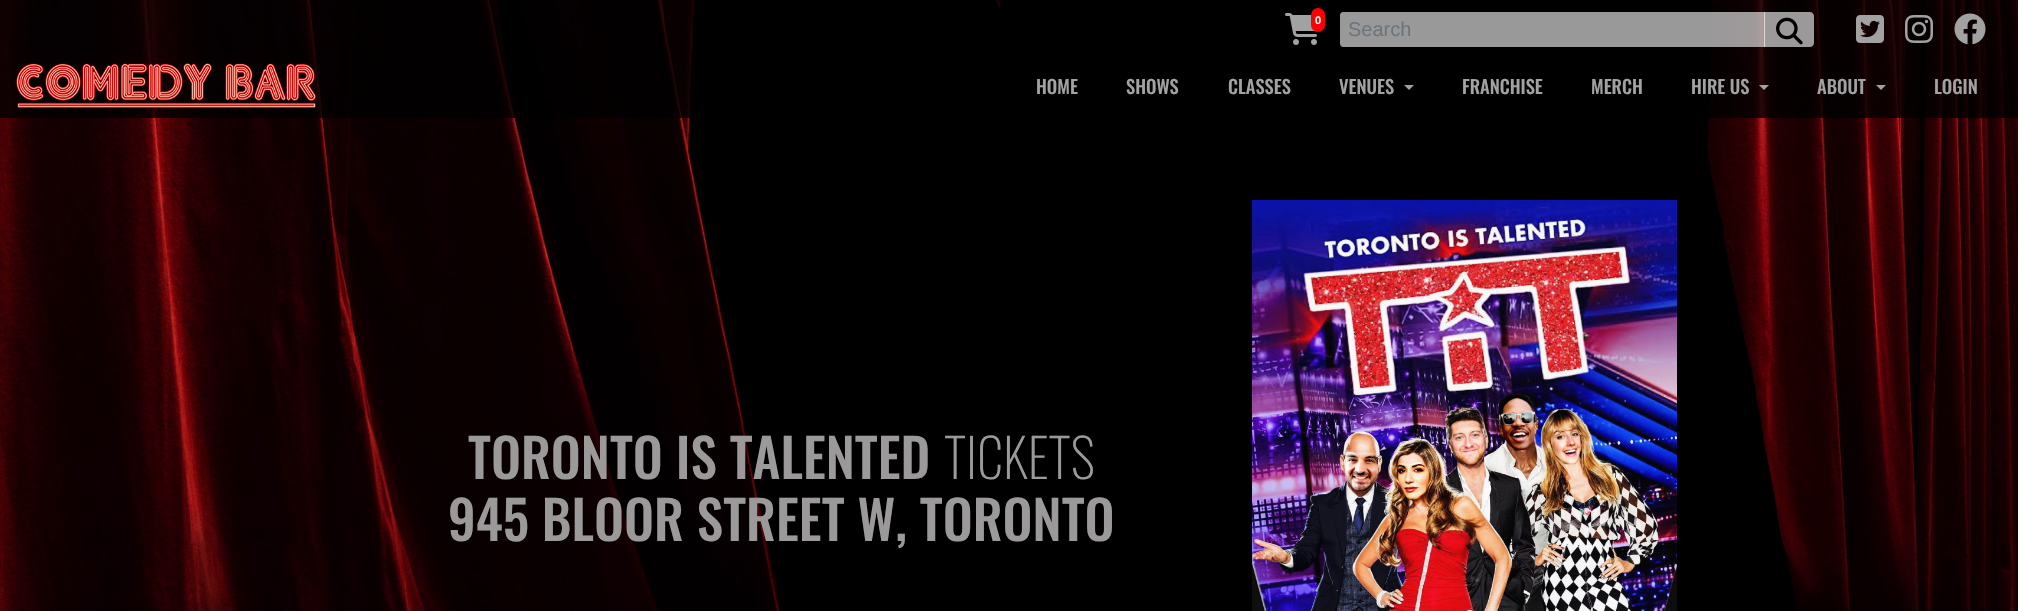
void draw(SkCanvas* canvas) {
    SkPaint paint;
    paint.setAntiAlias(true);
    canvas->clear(0xFF000000);
    canvas->drawImageRect(SkImages::DeferredFromEncodedData(SkData::MakeFromFileName("img1.png")), SkRect::MakeXYWH(0, 0, 2018, 611), SkSamplingOptions());
    paint.setColor(0xCC000000);
    canvas->drawRect(SkRect::MakeXYWH(0, 0, 2018, 118), paint);
    canvas->drawImageRect(SkImages::DeferredFromEncodedData(SkData::MakeFromFileName("img2.png")), SkRect::MakeXYWH(1285, 13, 32, 32), SkSamplingOptions());
    paint.setColor(0xFFFF0000);
    canvas->drawRoundRect(SkRect::MakeXYWH(1311, 8, 14, 24), 7, 7, paint);
    SkFont font1(fontMgr->matchFamilyStyle("Liberation Sans", SkFontStyle::Bold()), 11);
    font1.setSubpixel(true);
    paint.setColor(0xFFFFFFFF);
    canvas->drawString("0", 1315, 24, font1, paint);
    paint.setColor(0x99FFFFFF);
    canvas->drawPath(SkPathBuilder().moveTo(1343, 12).lineTo(1765, 12).lineTo(1765, 47).lineTo(1343, 47).cubicTo(1341.5f, 47, 1340, 45.5f, 1340, 44).lineTo(1340, 15).cubicTo(1340, 13.5f, 1341.5f, 12, 1343, 12).close().detach(), paint);
    SkFont font2(fontMgr->matchFamilyStyle("Liberation Sans", SkFontStyle::Normal()), 20);
    font2.setSubpixel(true);
    paint.setColor(0xFF6C757D);
    canvas->drawString("Search", 1348, 36, font2, paint);
    paint.setColor(0x99FFFFFF);
    canvas->drawPath(SkPathBuilder().moveTo(1764, 12).lineTo(1810, 12).cubicTo(1812, 12, 1814, 14, 1814, 16).lineTo(1814, 43).cubicTo(1814, 45, 1812, 47, 1810, 47).lineTo(1764, 47).close().detach(), paint);
    canvas->drawImageRect(SkImages::DeferredFromEncodedData(SkData::MakeFromFileName("img3.png")), SkRect::MakeXYWH(1776, 17, 27, 28), SkSamplingOptions());
    canvas->drawImageRect(SkImages::DeferredFromEncodedData(SkData::MakeFromFileName("img4.png")), SkRect::MakeXYWH(1856, 15, 28, 28), SkSamplingOptions());
    canvas->drawImageRect(SkImages::DeferredFromEncodedData(SkData::MakeFromFileName("img5.png")), SkRect::MakeXYWH(1905, 15, 28, 28), SkSamplingOptions());
    canvas->drawImageRect(SkImages::DeferredFromEncodedData(SkData::MakeFromFileName("img6.png")), SkRect::MakeXYWH(1954, 13, 32, 32), SkSamplingOptions());
    canvas->drawImageRect(SkImages::DeferredFromEncodedData(SkData::MakeFromFileName("img7.png")), SkRect::MakeXYWH(16, 63, 300, 46), SkSamplingOptions());
    SkFont font3(fontMgr->matchFamilyStyle("Oswald", SkFontStyle(500, SkFontStyle::kNormal_Width, SkFontStyle::kUpright_Slant)), 18.5f);
    font3.setSubpixel(true);
    paint.setColor(0xFFA2A2A2);
    canvas->drawString("HOME", 1036, 94, font3, paint);
    canvas->drawString("SHOWS", 1126, 94, font3, paint);
    canvas->drawString("CLASSES", 1228, 94, font3, paint);
    canvas->drawString("VENUES", 1339, 94, font3, paint);
    canvas->drawPath(SkPathBuilder().moveTo(1404, 85).lineTo(1414, 85).lineTo(1409, 90).close().detach(), paint);
    canvas->drawString("FRANCHISE", 1462, 94, font3, paint);
    canvas->drawString("MERCH", 1591, 94, font3, paint);
    canvas->drawString("HIRE US", 1691, 94, font3, paint);
    canvas->drawPath(SkPathBuilder().moveTo(1759, 85).lineTo(1769, 85).lineTo(1764, 90).close().detach(), paint);
    canvas->drawString("ABOUT", 1817, 94, font3, paint);
    canvas->drawPath(SkPathBuilder().moveTo(1876, 85).lineTo(1886, 85).lineTo(1881, 90).close().detach(), paint);
    canvas->drawString("LOGIN", 1934, 94, font3, paint);
    SkFont font4(fontMgr->matchFamilyStyle("Oswald", SkFontStyle(500, SkFontStyle::kNormal_Width, SkFontStyle::kUpright_Slant)), 53.3f);
    font4.setSubpixel(true);
    paint.setColor(0xFF9B9999);
    canvas->drawString("TORONTO IS TALENTED", 468, 479, font4, paint);
    SkFont font5(fontMgr->matchFamilyStyle("Oswald", SkFontStyle(200, SkFontStyle::kNormal_Width, SkFontStyle::kUpright_Slant)), 53.3f);
    font5.setSubpixel(true);
    canvas->drawString("TICKETS", 944, 479, font5, paint);
    canvas->drawString("945 BLOOR STREET W, TORONTO", 448, 541, font4, paint);
    canvas->drawImageRect(SkImages::DeferredFromEncodedData(SkData::MakeFromFileName("img8.png")), SkRect::MakeXYWH(1252, 200, 425, 411), SkSamplingOptions());
}
